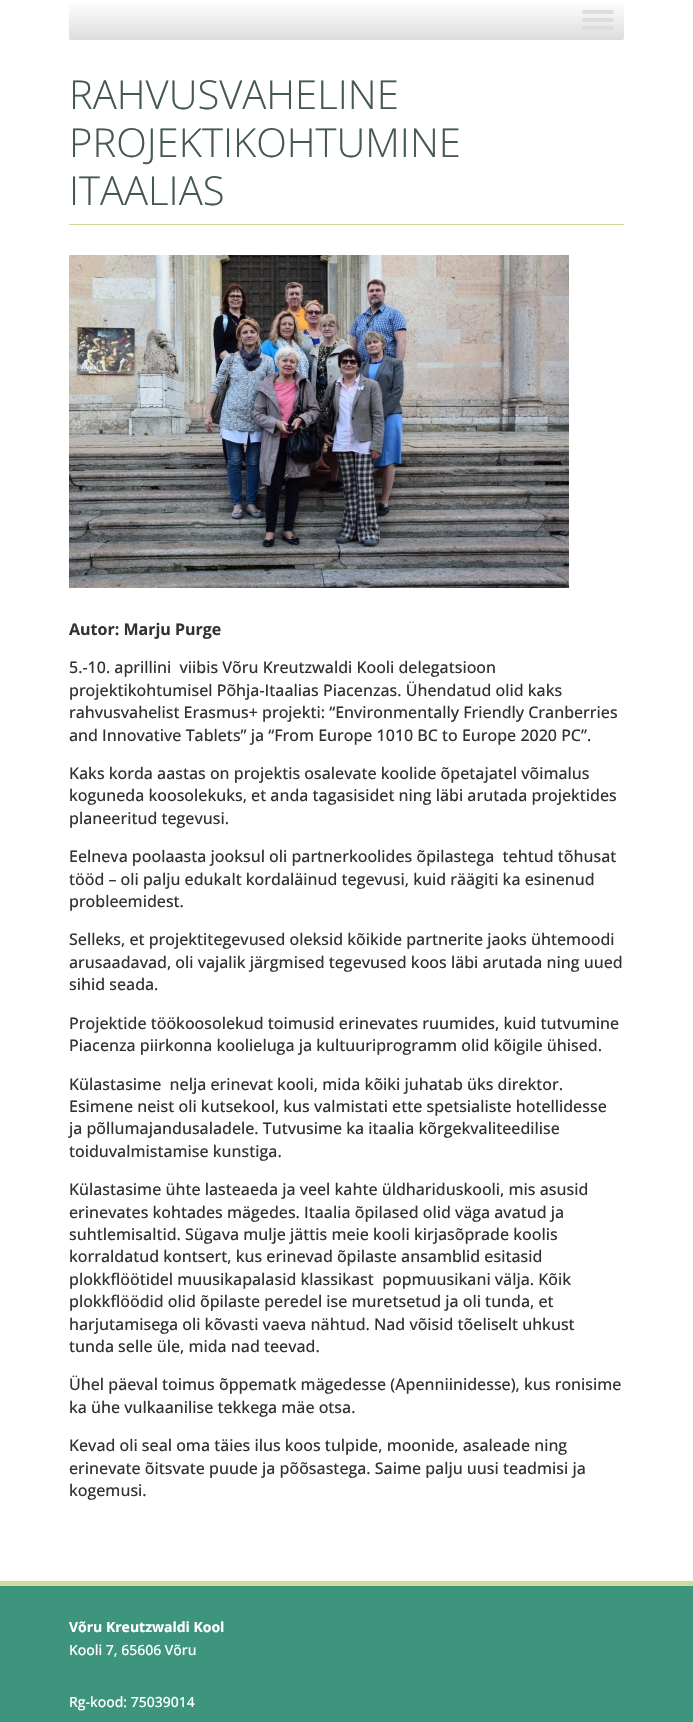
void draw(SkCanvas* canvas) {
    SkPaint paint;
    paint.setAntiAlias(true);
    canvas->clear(0xFF3D957D);
    paint.setColor(0xFFFFFFFF);
    canvas->drawRect(SkRect::MakeXYWH(0, 0, 693, 1581), paint);
    {
        const SkColor colors[] = {0xFFFFFFFF, 0xFFDDDDDD};
        const float stops[] = {0, 1};
        const SkPoint ends[] = {{347, 0}, {347, 40}};
        paint.setShader(SkGradientShader::MakeLinear(ends, colors, stops, 2, SkTileMode::kClamp));
        paint.setAlpha(255);
    }
    canvas->drawRoundRect(SkRect::MakeXYWH(69, 0, 555, 40), 2, 2, paint);
    paint.setShader(nullptr);
    paint.setColor(0xFFDDDDDD);
    canvas->drawRoundRect(SkRect::MakeXYWH(582, 10, 32, 4), 2, 2, paint);
    canvas->drawRoundRect(SkRect::MakeXYWH(582, 18, 32, 4), 2, 2, paint);
    canvas->drawRoundRect(SkRect::MakeXYWH(582, 26, 32, 4), 2, 2, paint);
    paint.setColor(0xFFD1DB97);
    canvas->drawRect(SkRect::MakeXYWH(69, 224, 555, 1), paint);
    SkFont font1(fontMgr->matchFamilyStyle("Open Sans", SkFontStyle(300, SkFontStyle::kNormal_Width, SkFontStyle::kUpright_Slant)), 40);
    font1.setSubpixel(true);
    paint.setColor(0xFF465855);
    canvas->drawString("RAHVUSVAHELINE", 69, 109, font1, paint);
    canvas->drawString("PROJEKTIKOHTUMINE", 69, 157, font1, paint);
    canvas->drawString("ITAALIAS", 69, 205, font1, paint);
    canvas->drawImageRect(SkImages::DeferredFromEncodedData(SkData::MakeFromFileName("img1.png")), SkRect::MakeXYWH(69, 255, 500, 333), SkSamplingOptions());
    SkFont font2(fontMgr->matchFamilyStyle("Open Sans", SkFontStyle::Bold()), 16);
    font2.setSubpixel(true);
    paint.setColor(0xFF333333);
    canvas->drawString("Autor: Marju Purge", 69, 635, font2, paint);
    SkFont font3(fontMgr->matchFamilyStyle("Open Sans", SkFontStyle(500, SkFontStyle::kNormal_Width, SkFontStyle::kUpright_Slant)), 16);
    font3.setSubpixel(true);
    canvas->drawString("5.-10. aprillini  viibis Võru Kreutzwaldi Kooli delegatsioon", 69, 673, font3, paint);
    canvas->drawString("projektikohtumisel Põhja-Itaalias Piacenzas. Ühendatud olid kaks", 69, 696, font3, paint);
    canvas->drawString("rahvusvahelist Erasmus+ projekti: “Environmentally Friendly Cranberries", 69, 718, font3, paint);
    canvas->drawString("and Innovative Tablets” ja “From Europe 1010 BC to Europe 2020 PC”.", 69, 741, font3, paint);
    canvas->drawString("Kaks korda aastas on projektis osalevate koolide õpetajatel võimalus", 69, 779, font3, paint);
    canvas->drawString("koguneda koosolekuks, et anda tagasisidet ning läbi arutada projektides", 69, 801, font3, paint);
    canvas->drawString("planeeritud tegevusi.", 69, 824, font3, paint);
    canvas->drawString("Eelneva poolaasta jooksul oli partnerkoolides õpilastega  tehtud tõhusat", 69, 862, font3, paint);
    canvas->drawString("tööd – oli palju edukalt kordaläinud tegevusi, kuid räägiti ka esinenud", 69, 885, font3, paint);
    canvas->drawString("probleemidest.", 69, 907, font3, paint);
    canvas->drawString("Selleks, et projektitegevused oleksid kõikide partnerite jaoks ühtemoodi", 69, 945, font3, paint);
    canvas->drawString("arusaadavad, oli vajalik järgmised tegevused koos läbi arutada ning uued", 69, 968, font3, paint);
    canvas->drawString("sihid seada.", 69, 990, font3, paint);
    canvas->drawString("Projektide töökoosolekud toimusid erinevates ruumides, kuid tutvumine", 69, 1029, font3, paint);
    canvas->drawString("Piacenza piirkonna koolieluga ja kultuuriprogramm olid kõigile ühised.", 69, 1051, font3, paint);
    canvas->drawString("Külastasime  nelja erinevat kooli, mida kõiki juhatab üks direktor.", 69, 1090, font3, paint);
    canvas->drawString("Esimene neist oli kutsekool, kus valmistati ette spetsialiste hotellidesse", 69, 1112, font3, paint);
    canvas->drawString("ja põllumajandusaladele. Tutvusime ka itaalia kõrgekvaliteedilise", 69, 1134, font3, paint);
    canvas->drawString("toiduvalmistamise kunstiga.", 69, 1157, font3, paint);
    canvas->drawString("Külastasime ühte lasteaeda ja veel kahte üldhariduskooli, mis asusid", 69, 1195, font3, paint);
    canvas->drawString("erinevates kohtades mägedes. Itaalia õpilased olid väga avatud ja", 69, 1218, font3, paint);
    canvas->drawString("suhtlemisaltid. Sügava mulje jättis meie kooli kirjasõprade koolis", 69, 1240, font3, paint);
    canvas->drawString("korraldatud kontsert, kus erinevad õpilaste ansamblid esitasid", 69, 1262, font3, paint);
    canvas->drawString("plokkflöötidel muusikapalasid klassikast  popmuusikani välja. Kõik", 69, 1285, font3, paint);
    canvas->drawString("plokkflöödid olid õpilaste peredel ise muretsetud ja oli tunda, et", 69, 1307, font3, paint);
    canvas->drawString("harjutamisega oli kõvasti vaeva nähtud. Nad võisid tõeliselt uhkust", 69, 1330, font3, paint);
    canvas->drawString("tunda selle üle, mida nad teevad.", 69, 1352, font3, paint);
    canvas->drawString("Ühel päeval toimus õppematk mägedesse (Apenniinidesse), kus ronisime", 69, 1390, font3, paint);
    canvas->drawString("ka ühe vulkaanilise tekkega mäe otsa.", 69, 1413, font3, paint);
    canvas->drawString("Kevad oli seal oma täies ilus koos tulpide, moonide, asaleade ning", 69, 1451, font3, paint);
    canvas->drawString("erinevate õitsvate puude ja põõsastega. Saime palju uusi teadmisi ja", 69, 1474, font3, paint);
    canvas->drawString("kogemusi.", 69, 1496, font3, paint);
    paint.setColor(0xFFD1DB97);
    canvas->drawRect(SkRect::MakeXYWH(0, 1581, 693, 5), paint);
    SkFont font4(fontMgr->matchFamilyStyle("Open Sans", SkFontStyle::Bold()), 14);
    font4.setSubpixel(true);
    paint.setColor(0xFFFFFFFF);
    canvas->drawString("Võru Kreutzwaldi Kool", 69, 1632, font4, paint);
    SkFont font5(fontMgr->matchFamilyStyle("Open Sans", SkFontStyle(500, SkFontStyle::kNormal_Width, SkFontStyle::kUpright_Slant)), 14);
    font5.setSubpixel(true);
    canvas->drawString("Kooli 7, 65606 Võru", 69, 1655, font5, paint);
    canvas->drawString("Rg-kood: 75039014", 69, 1707, font5, paint);
}
